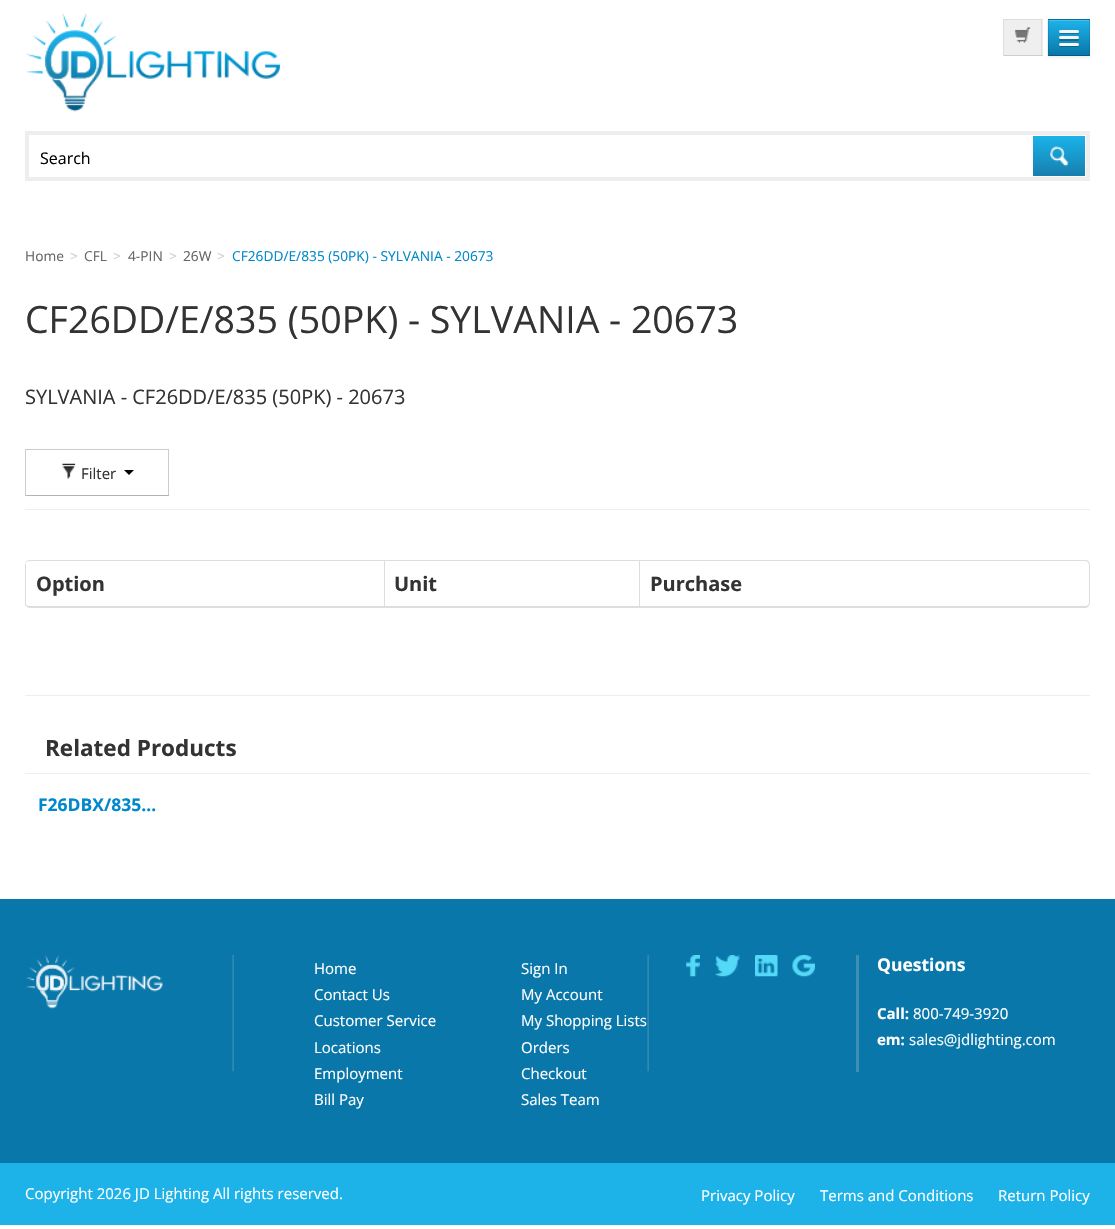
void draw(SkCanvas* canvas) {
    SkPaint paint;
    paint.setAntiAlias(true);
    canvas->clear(0xFFFFFFFF);
    canvas->drawImageRect(SkImages::DeferredFromEncodedData(SkData::MakeFromFileName("img1.png")), SkRect::MakeXYWH(26, 13, 254, 99), SkSamplingOptions());
    paint.setColor(0xFFEFEFEF);
    canvas->drawRect(SkRect::MakeXYWH(1004, 20, 39, 35), paint);
    paint.setColor(0xFFDEDEDE);
    canvas->drawRect(SkRect::MakeXYWH(1003, 19, 40, 1), paint);
    canvas->drawRect(SkRect::MakeXYWH(1041, 19, 1, 37), paint);
    paint.setColor(0xFFCECECE);
    canvas->drawRect(SkRect::MakeXYWH(1003, 55, 40, 1), paint);
    paint.setColor(0xFFDEDEDE);
    canvas->drawRect(SkRect::MakeXYWH(1003, 19, 1, 37), paint);
    canvas->drawImageRect(SkImages::DeferredFromEncodedData(SkData::MakeFromFileName("img2.png")), SkRect::MakeXYWH(1014, 27, 17, 16), SkSamplingOptions());
    paint.setColor(0x0D000000);
    paint.setMaskFilter(SkMaskFilter::MakeBlur(kNormal_SkBlurStyle, 1));
    canvas->drawRect(SkRect::MakeXYWH(1048, 20, 42, 38), paint);
    paint.setMaskFilter(nullptr);
    paint.setColor(0xFF0977A9);
    canvas->drawRect(SkRect::MakeXYWH(1048, 19, 42, 37), paint);
    {
        const SkColor colors[] = {0xFF1DB3E9, 0xFF0977A9};
        const float stops[] = {0, 1};
        const SkPoint ends[] = {{1069, 20}, {1069, 55}};
        paint.setShader(SkGradientShader::MakeLinear(ends, colors, stops, 2, SkTileMode::kClamp));
        paint.setAlpha(255);
    }
    canvas->drawRect(SkRect::MakeXYWH(1048, 20, 42, 34), paint);
    paint.setShader(nullptr);
    paint.setColor(0xFF4AC1ED);
    canvas->drawRect(SkRect::MakeXYWH(1049, 20, 40, 1), paint);
    paint.setColor(0xFF086B98);
    canvas->drawPath(SkPathBuilder().moveTo(1048, 19).lineTo(1090, 19).lineTo(1089, 20).lineTo(1049, 20).close().detach(), paint);
    paint.setColor(0x1A000000);
    canvas->drawPath(SkPathBuilder().moveTo(1090, 19).lineTo(1090, 56).lineTo(1089, 55).lineTo(1089, 20).close().detach(), paint);
    paint.setColor(0x40000000);
    canvas->drawPath(SkPathBuilder().moveTo(1090, 56).lineTo(1048, 56).lineTo(1049, 55).lineTo(1089, 55).close().detach(), paint);
    paint.setColor(0x1A000000);
    canvas->drawPath(SkPathBuilder().moveTo(1047.5f, 56).lineTo(1047.5f, 19).lineTo(1049, 20).lineTo(1049, 55).close().detach(), paint);
    paint.setColor(0xFF10759C);
    canvas->drawPath(SkPathBuilder().moveTo(1059, 32).cubicTo(1058.5f, 34.5f, 1062.5f, 34, 1063.5f, 34).lineTo(1074.5f, 34).cubicTo(1075.5f, 34, 1081, 34.5f, 1078.5f, 31.5f).lineTo(1078, 32.5f).lineTo(1060, 32.5f).close().detach(), paint);
    paint.setColor(0xFFF5F5F5);
    canvas->drawRoundRect(SkRect::MakeXYWH(1059, 30, 20, 3), 1.5f, 1.5f, paint);
    paint.setColor(0xFF0D6D93);
    canvas->drawPath(SkPathBuilder().moveTo(1059.5f, 38.5f).lineTo(1059, 40).cubicTo(1059.5f, 41.5f, 1062.5f, 41, 1063.5f, 41).lineTo(1074.5f, 41).cubicTo(1075.5f, 41, 1078.5f, 41.5f, 1079, 40).cubicTo(1079, 39.5f, 1079, 38.5f, 1078.5f, 38.5f).cubicTo(1078, 39, 1060, 39, 1059.5f, 38.5f).close().detach(), paint);
    paint.setColor(0xFFF5F5F5);
    canvas->drawRoundRect(SkRect::MakeXYWH(1059, 36, 20, 3), 1.5f, 1.5f, paint);
    paint.setColor(0xFF0B658B);
    canvas->drawPath(SkPathBuilder().moveTo(1059, 44.5f).cubicTo(1057.5f, 47.5f, 1062.5f, 47, 1063.5f, 47).lineTo(1074.5f, 47).cubicTo(1075.5f, 47, 1078.5f, 47.5f, 1079, 46).lineTo(1078.5f, 44.5f).lineTo(1077.5f, 45).cubicTo(1076, 45, 1060, 45.5f, 1059, 44.5f).close().detach(), paint);
    paint.setColor(0xFFF5F5F5);
    canvas->drawRoundRect(SkRect::MakeXYWH(1059, 43, 20, 3), 1.5f, 1.5f, paint);
    paint.setStyle(SkPaint::kStroke_Style);
    paint.setStrokeWidth(4);
    paint.setColor(0xFFEFEEEE);
    canvas->drawRect(SkRect::MakeXYWH(27, 133, 1061, 46), paint);
    SkFont font1(fontMgr->matchFamilyStyle("Open Sans", SkFontStyle::Normal()), 16);
    font1.setSubpixel(true);
    paint.setStyle(SkPaint::kFill_Style);
    paint.setColor(0xFF000000);
    canvas->drawString("Search", 40, 164, font1, paint);
    {
        const SkColor colors[] = {0xFF177EAE, 0xFF1AB3E9};
        const float stops[] = {0, 1};
        const SkPoint ends[] = {{1059, 176}, {1059, 136}};
        paint.setShader(SkGradientShader::MakeLinear(ends, colors, stops, 2, SkTileMode::kClamp));
        paint.setAlpha(255);
    }
    canvas->drawRect(SkRect::MakeXYWH(1033, 136, 52, 40), paint);
    canvas->drawImageRect(SkImages::DeferredFromEncodedData(SkData::MakeFromFileName("img3.png")), SkRect::MakeXYWH(1050, 146, 19, 21), SkSamplingOptions());
    SkFont font2(fontMgr->matchFamilyStyle("Open Sans", SkFontStyle::Normal()), 13.75f);
    font2.setSubpixel(true);
    paint.setShader(nullptr);
    paint.setColor(0xFF666666);
    canvas->drawString("Home", 25, 261, font2, paint);
    paint.setColor(0xFFCCCCCC);
    canvas->drawString(">", 70, 261, font2, paint);
    paint.setColor(0xFF666666);
    canvas->drawString("CFL", 84, 261, font2, paint);
    paint.setColor(0xFFCCCCCC);
    canvas->drawString(">", 113, 261, font2, paint);
    paint.setColor(0xFF666666);
    canvas->drawString("4-PIN", 128, 261, font2, paint);
    paint.setColor(0xFFCCCCCC);
    canvas->drawString(">", 169, 261, font2, paint);
    paint.setColor(0xFF666666);
    canvas->drawString("26W", 183, 261, font2, paint);
    paint.setColor(0xFFCCCCCC);
    canvas->drawString(">", 217, 261, font2, paint);
    paint.setColor(0xFF0088CC);
    canvas->drawString("CF26DD/E/835 (50PK) - SYLVANIA - 20673", 232, 261, font2, paint);
    SkFont font3(fontMgr->matchFamilyStyle("Open Sans", SkFontStyle::Normal()), 37.5f);
    font3.setSubpixel(true);
    paint.setColor(0xFF333333);
    canvas->drawString("CF26DD/E/835 (50PK) - SYLVANIA - 20673", 25, 333, font3, paint);
    SkFont font4(fontMgr->matchFamilyStyle("Open Sans", SkFontStyle::Normal()), 20);
    font4.setSubpixel(true);
    canvas->drawString("SYLVANIA - CF26DD/E/835 (50PK) - 20673", 25, 404, font4, paint);
    paint.setColor(0xFFEEEEEE);
    canvas->drawRect(SkRect::MakeXYWH(25, 509, 1065, 1), paint);
    paint.setColor(0xFFCCCCCC);
    canvas->drawRect(SkRect::MakeXYWH(25, 449, 144, 1), paint);
    canvas->drawRect(SkRect::MakeXYWH(168, 449, 1, 47), paint);
    paint.setColor(0xFFB3B3B3);
    canvas->drawRect(SkRect::MakeXYWH(25, 495, 144, 1), paint);
    paint.setColor(0xFFCCCCCC);
    canvas->drawRect(SkRect::MakeXYWH(25, 449, 1, 47), paint);
    canvas->drawImageRect(SkImages::DeferredFromEncodedData(SkData::MakeFromFileName("img4.png")), SkRect::MakeXYWH(62, 463, 14, 16), SkSamplingOptions());
    SkFont font5(fontMgr->matchFamilyStyle("Open Sans", SkFontStyle::Normal()), 15);
    font5.setSubpixel(true);
    paint.setColor(0xFF333333);
    canvas->drawString("Filter", 81, 479, font5, paint);
    paint.setColor(0xFF000000);
    canvas->drawPath(SkPathBuilder().moveTo(124, 470).lineTo(134, 470).lineTo(129, 475).close().detach(), paint);
    paint.setColor(0xFFDDDDDD);
    canvas->drawPath(SkPathBuilder(SkPathFillType::kEvenOdd).moveTo(30, 560).lineTo(1085, 560).cubicTo(1088, 560, 1090, 562, 1090, 565).lineTo(1090, 602).cubicTo(1090, 605, 1088, 608, 1085, 608).lineTo(30, 608).cubicTo(27, 608, 25, 605, 25, 602).lineTo(25, 565).cubicTo(25, 562, 27, 560, 30, 560).close().moveTo(30, 561).lineTo(1085, 561).cubicTo(1087, 561, 1089, 563, 1089, 565).lineTo(1089, 602).cubicTo(1089, 605, 1087, 606, 1085, 606).lineTo(30, 606).cubicTo(27, 606, 25, 605, 25, 602).lineTo(25, 565).cubicTo(25, 563, 27, 561, 30, 561).close().detach(), paint);
    canvas->drawRect(SkRect::MakeXYWH(25, 564, 1, 42), paint);
    SkFont font6(fontMgr->matchFamilyStyle("Open Sans", SkFontStyle::Bold()), 20);
    font6.setSubpixel(true);
    paint.setColor(0xFF333333);
    canvas->drawString("Option", 36, 591, font6, paint);
    paint.setColor(0xFFDDDDDD);
    canvas->drawRect(SkRect::MakeXYWH(384, 561, 1, 45), paint);
    paint.setColor(0xFF333333);
    canvas->drawString("Unit", 394, 591, font6, paint);
    paint.setColor(0xFFDDDDDD);
    canvas->drawRect(SkRect::MakeXYWH(639, 561, 1, 45), paint);
    paint.setColor(0xFF333333);
    canvas->drawString("Purchase", 650, 591, font6, paint);
    paint.setColor(0xFFEEEEEE);
    canvas->drawRect(SkRect::MakeXYWH(25, 695, 1065, 1), paint);
    paint.setColor(0xFFEFEFEF);
    canvas->drawRect(SkRect::MakeXYWH(25, 773, 1065, 1), paint);
    SkFont font7(fontMgr->matchFamilyStyle("Open Sans", SkFontStyle::Bold()), 22.5f);
    font7.setSubpixel(true);
    paint.setColor(0xFF333333);
    canvas->drawString("Related Products", 45, 756, font7, paint);
    SkFont font8(fontMgr->matchFamilyStyle("Open Sans", SkFontStyle::Bold()), 17.5f);
    font8.setSubpixel(true);
    paint.setColor(0xFF0088CC);
    canvas->drawString("F26DBX/835…", 38, 811, font8, paint);
    paint.setColor(0xFF0977A9);
    canvas->drawRect(SkRect::MakeXYWH(0, 899, 1115, 264), paint);
    canvas->drawImageRect(SkImages::DeferredFromEncodedData(SkData::MakeFromFileName("img5.png")), SkRect::MakeXYWH(26, 955, 137, 54), SkSamplingOptions());
    canvas->drawImageRect(SkImages::DeferredFromEncodedData(SkData::MakeFromFileName("img6.png")), SkRect::MakeXYWH(232, 955, 2, 117), SkSamplingOptions());
    paint.setColor(0xFFFFFFFF);
    canvas->drawString("Home", 314, 974, font5, paint);
    canvas->drawString("Contact Us", 314, 1000, font5, paint);
    canvas->drawString("Customer Service", 314, 1026, font5, paint);
    canvas->drawString("Locations", 314, 1053, font5, paint);
    canvas->drawString("Employment", 314, 1079, font5, paint);
    canvas->drawString("Bill Pay", 314, 1105, font5, paint);
    canvas->drawString("Sign In", 521, 974, font5, paint);
    canvas->drawString("My Account", 521, 1000, font5, paint);
    canvas->drawString("My Shopping Lists", 521, 1026, font5, paint);
    canvas->drawString("Orders", 521, 1053, font5, paint);
    canvas->drawString("Checkout", 521, 1079, font5, paint);
    canvas->drawString("Sales Team", 521, 1105, font5, paint);
    canvas->drawImageRect(SkImages::DeferredFromEncodedData(SkData::MakeFromFileName("img6.png")), SkRect::MakeXYWH(647, 955, 2, 117), SkSamplingOptions());
    canvas->drawImageRect(SkImages::DeferredFromEncodedData(SkData::MakeFromFileName("img7.png")), SkRect::MakeXYWH(686, 955, 14, 22), SkSamplingOptions());
    canvas->drawImageRect(SkImages::DeferredFromEncodedData(SkData::MakeFromFileName("img8.png")), SkRect::MakeXYWH(715, 955, 25, 22), SkSamplingOptions());
    canvas->drawImageRect(SkImages::DeferredFromEncodedData(SkData::MakeFromFileName("img9.png")), SkRect::MakeXYWH(755, 955, 23, 22), SkSamplingOptions());
    canvas->drawImageRect(SkImages::DeferredFromEncodedData(SkData::MakeFromFileName("img10.png")), SkRect::MakeXYWH(792, 955, 23, 22), SkSamplingOptions());
    paint.setColor(0xFF408EB2);
    canvas->drawRect(SkRect::MakeXYWH(856, 955, 3, 117), paint);
    paint.setColor(0xFFFFFFFF);
    canvas->drawString("Questions", 877, 971, font8, paint);
    SkFont font9(fontMgr->matchFamilyStyle("Open Sans", SkFontStyle::Bold()), 15);
    font9.setSubpixel(true);
    canvas->drawString("Call:", 877, 1019, font9, paint);
    canvas->drawString("800-749-3920", 913, 1019, font5, paint);
    canvas->drawString("em:", 877, 1045, font9, paint);
    canvas->drawString("sales@jdlighting.com", 909, 1045, font5, paint);
    paint.setColor(0xFF1DB3E9);
    canvas->drawRect(SkRect::MakeXYWH(0, 1163, 1115, 62), paint);
    paint.setColor(0xFFFFFFFF);
    canvas->drawString("Copyright 2026 JD Lighting All rights reserved.", 25, 1199, font5, paint);
    canvas->drawString("Privacy Policy", 701, 1201, font5, paint);
    canvas->drawString("Terms and Conditions", 820, 1201, font5, paint);
    canvas->drawString("Return Policy", 998, 1201, font5, paint);
}
